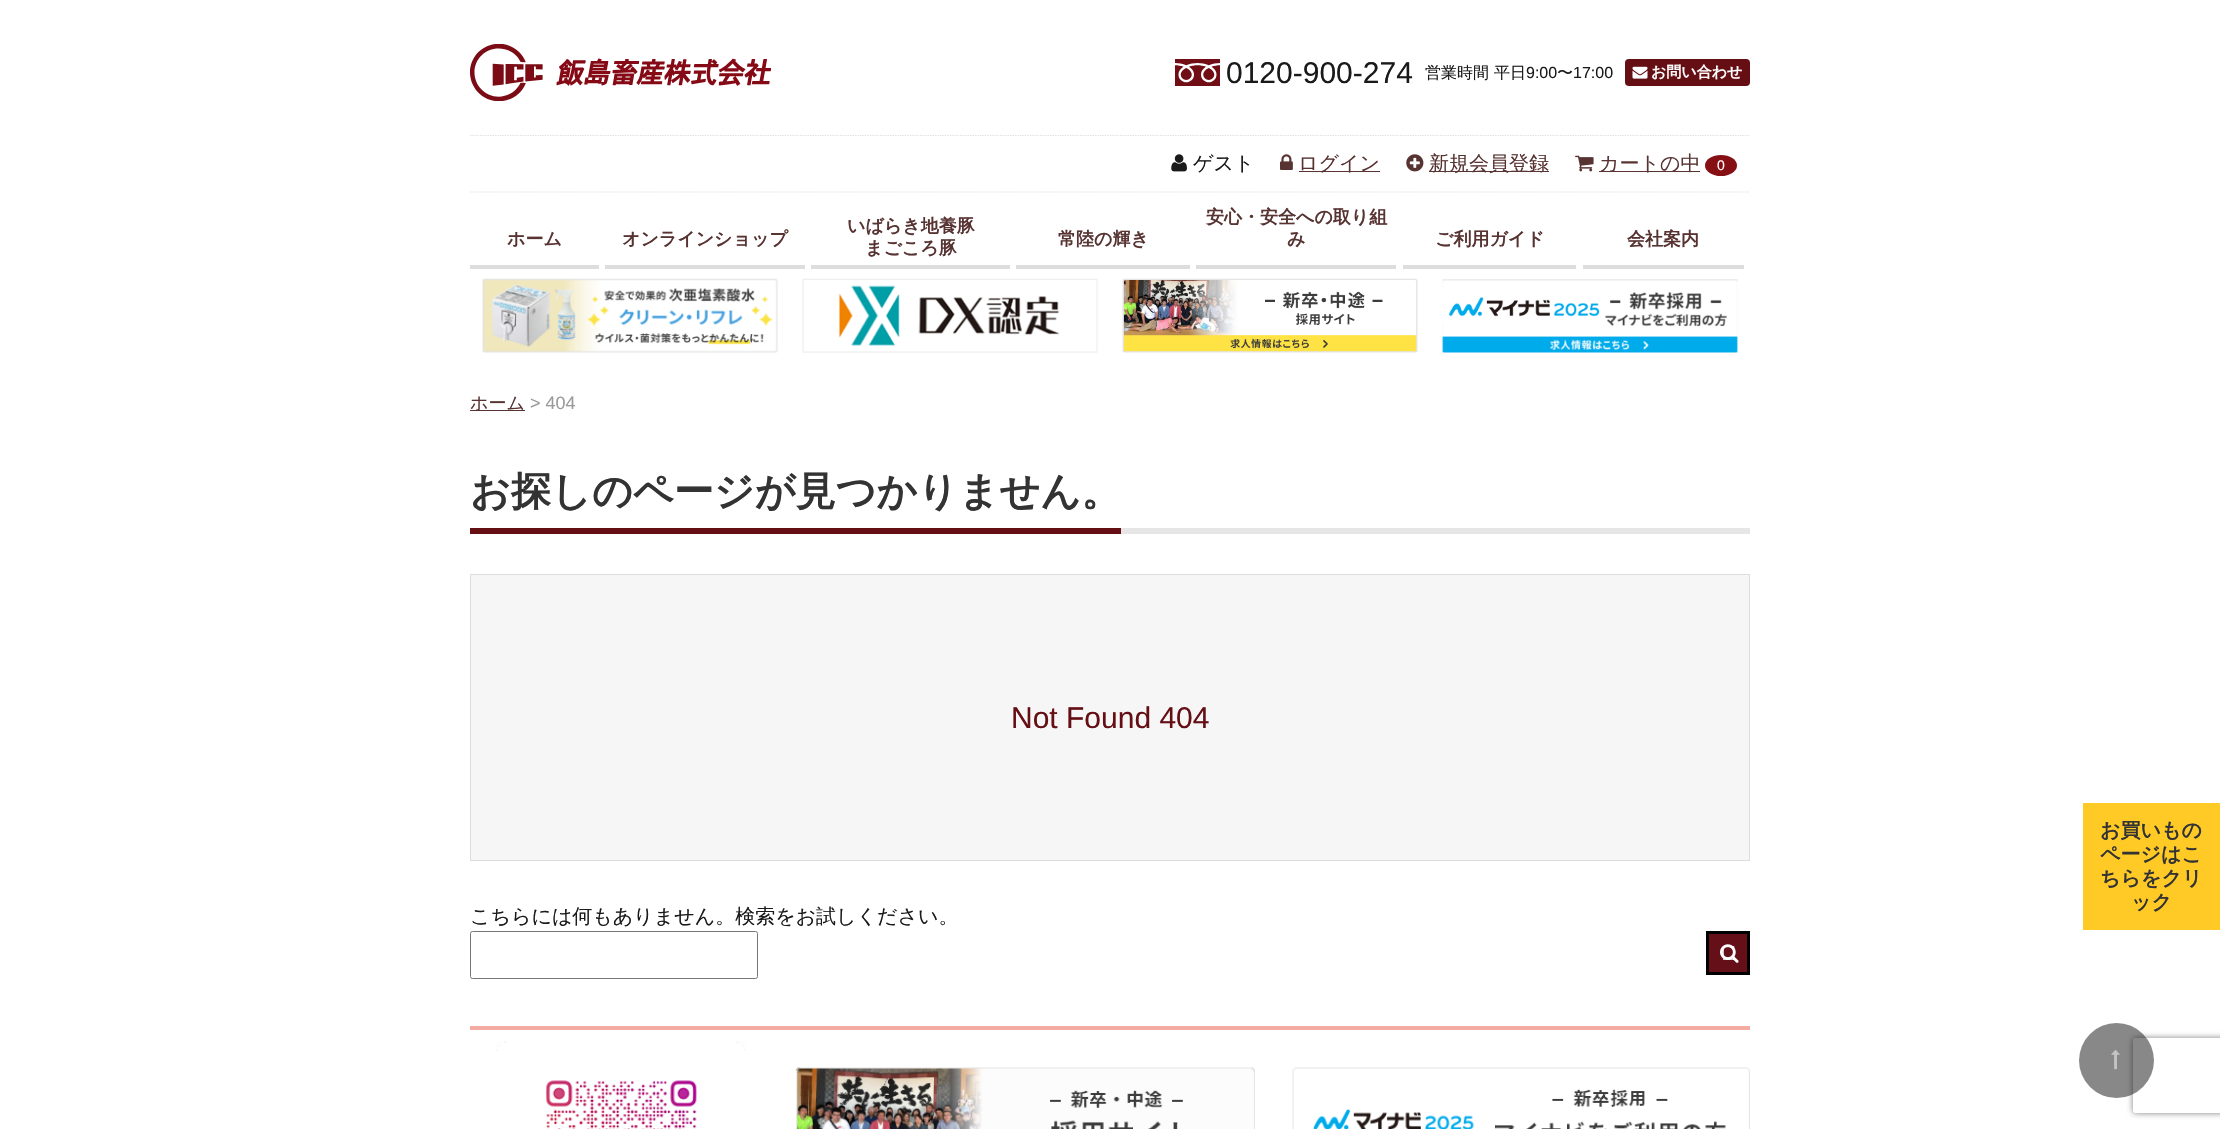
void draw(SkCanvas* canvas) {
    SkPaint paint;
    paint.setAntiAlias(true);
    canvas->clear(0xFFFFFFFF);
    canvas->drawImageRect(SkImages::DeferredFromEncodedData(SkData::MakeFromFileName("img1.png")), SkRect::MakeXYWH(470, 44, 301, 57), SkSamplingOptions());
    canvas->drawImageRect(SkImages::DeferredFromEncodedData(SkData::MakeFromFileName("img2.png")), SkRect::MakeXYWH(1175, 59, 45, 27), SkSamplingOptions());
    SkFont font1(fontMgr->matchFamilyStyle("Liberation Sans", SkFontStyle::Normal()), 30);
    font1.setSubpixel(true);
    paint.setColor(0xFF1A1A1A);
    canvas->drawString("0120-900-274", 1226, 83, font1, paint);
    SkFont font2(fontMgr->matchFamilyStyle("WenQuanYi Zen Hei", SkFontStyle(500, SkFontStyle::kNormal_Width, SkFontStyle::kUpright_Slant)), 16);
    font2.setSubpixel(true);
    canvas->drawString("営業時間", 1425, 78, font2, paint);
    canvas->drawString("平日", 1494, 78, font2, paint);
    SkFont font3(fontMgr->matchFamilyStyle("Liberation Sans", SkFontStyle::Normal()), 16);
    font3.setSubpixel(true);
    canvas->drawString("9:00", 1526, 78, font3, paint);
    canvas->drawString("〜", 1557, 78, font2, paint);
    canvas->drawString("17:00", 1573, 78, font3, paint);
    paint.setColor(0xFF650F15);
    canvas->drawRoundRect(SkRect::MakeXYWH(1625, 59, 125, 27), 4, 4, paint);
    canvas->drawImageRect(SkImages::DeferredFromEncodedData(SkData::MakeFromFileName("img3.png")), SkRect::MakeXYWH(1632, 66, 16, 13), SkSamplingOptions());
    SkFont font4(fontMgr->matchFamilyStyle("WenQuanYi Zen Hei", SkFontStyle::Bold()), 15);
    font4.setSubpixel(true);
    paint.setColor(0xFFFFFFFF);
    canvas->drawString("お問い合わせ", 1651, 77, font4, paint);
    paint.setStyle(SkPaint::kStroke_Style);
    paint.setStrokeWidth(1.2f);
    paint.setColor(0xFFDDDDDD);
    paint.setPathEffect(SkDashPathEffect::Make({{1.25f, 1.25f}}, 0));
    canvas->drawPath(SkPathBuilder().moveTo(470, 135.5f).lineTo(1750, 135.5f).detach(), paint);
    paint.setPathEffect(nullptr);
    paint.setPathEffect(SkDashPathEffect::Make({{1.25f, 1.25f}}, 0));
    canvas->drawPath(SkPathBuilder().moveTo(470, 192).lineTo(1750, 192).detach(), paint);
    paint.setPathEffect(nullptr);
    canvas->drawImageRect(SkImages::DeferredFromEncodedData(SkData::MakeFromFileName("img4.png")), SkRect::MakeXYWH(1171, 154, 16, 18), SkSamplingOptions());
    SkFont font5(fontMgr->matchFamilyStyle("WenQuanYi Zen Hei", SkFontStyle(500, SkFontStyle::kNormal_Width, SkFontStyle::kUpright_Slant)), 20);
    font5.setSubpixel(true);
    paint.setStyle(SkPaint::kFill_Style);
    paint.setColor(0xFF1A1A1A);
    canvas->drawString("ゲスト", 1193, 170, font5, paint);
    canvas->drawImageRect(SkImages::DeferredFromEncodedData(SkData::MakeFromFileName("img5.png")), SkRect::MakeXYWH(1280, 154, 13, 16), SkSamplingOptions());
    paint.setColor(0xFF573332);
    canvas->drawRect(SkRect::MakeXYWH(1299, 171, 81, 1), paint);
    canvas->drawString("ログイン", 1298, 170, font5, paint);
    canvas->drawImageRect(SkImages::DeferredFromEncodedData(SkData::MakeFromFileName("img6.png")), SkRect::MakeXYWH(1406, 154, 18, 18), SkSamplingOptions());
    canvas->drawRect(SkRect::MakeXYWH(1429, 171, 120, 1), paint);
    canvas->drawString("新規会員登録", 1429, 170, font5, paint);
    canvas->drawImageRect(SkImages::DeferredFromEncodedData(SkData::MakeFromFileName("img7.png")), SkRect::MakeXYWH(1575, 155, 19, 17), SkSamplingOptions());
    canvas->drawRect(SkRect::MakeXYWH(1599, 171, 101, 1), paint);
    canvas->drawString("カートの中", 1599, 170, font5, paint);
    paint.setColor(0xFF860F14);
    canvas->drawOval(SkRect::MakeXYWH(1705, 155, 32, 21), paint);
    SkFont font6(fontMgr->matchFamilyStyle("Liberation Sans", SkFontStyle::Normal()), 14);
    font6.setSubpixel(true);
    paint.setColor(0xFFFFFFFF);
    canvas->drawString("0", 1717, 170, font6, paint);
    paint.setColor(0xFFDDDDDD);
    canvas->drawRect(SkRect::MakeXYWH(470, 265, 129, 4), paint);
    SkFont font7(fontMgr->matchFamilyStyle("WenQuanYi Zen Hei", SkFontStyle::Bold()), 18);
    font7.setSubpixel(true);
    paint.setColor(0xFF573332);
    canvas->drawString("ホーム", 507, 245, font7, paint);
    paint.setColor(0xFFDDDDDD);
    canvas->drawRect(SkRect::MakeXYWH(605, 265, 200, 4), paint);
    paint.setColor(0xFF573332);
    canvas->drawString("オンラインショップ", 622, 245, font7, paint);
    paint.setColor(0xFFDDDDDD);
    canvas->drawRect(SkRect::MakeXYWH(811, 265, 199, 4), paint);
    paint.setColor(0xFF573332);
    canvas->drawString("いばらき地養豚", 847, 232, font7, paint);
    canvas->drawString("まごころ豚", 865, 254, font7, paint);
    paint.setColor(0xFFDDDDDD);
    canvas->drawRect(SkRect::MakeXYWH(1016, 265, 174, 4), paint);
    paint.setColor(0xFF573332);
    canvas->drawString("常陸の輝き", 1058, 245, font7, paint);
    paint.setColor(0xFFDDDDDD);
    canvas->drawRect(SkRect::MakeXYWH(1196, 265, 200, 4), paint);
    paint.setColor(0xFF573332);
    canvas->drawString("安心・安全への取り組", 1206, 223, font7, paint);
    canvas->drawString("み", 1287, 245, font7, paint);
    paint.setColor(0xFFDDDDDD);
    canvas->drawRect(SkRect::MakeXYWH(1403, 265, 173, 4), paint);
    paint.setColor(0xFF573332);
    canvas->drawString("ご利用ガイド", 1435, 245, font7, paint);
    paint.setColor(0xFFDDDDDD);
    canvas->drawRect(SkRect::MakeXYWH(1583, 265, 161, 4), paint);
    paint.setColor(0xFF573332);
    canvas->drawString("会社案内", 1627, 245, font7, paint);
    canvas->drawImageRect(SkImages::DeferredFromEncodedData(SkData::MakeFromFileName("img8.png")), SkRect::MakeXYWH(482, 278, 296, 75), SkSamplingOptions());
    canvas->drawImageRect(SkImages::DeferredFromEncodedData(SkData::MakeFromFileName("img9.png")), SkRect::MakeXYWH(802, 278, 296, 75), SkSamplingOptions());
    canvas->drawImageRect(SkImages::DeferredFromEncodedData(SkData::MakeFromFileName("img10.png")), SkRect::MakeXYWH(1122, 278, 296, 75), SkSamplingOptions());
    canvas->drawImageRect(SkImages::DeferredFromEncodedData(SkData::MakeFromFileName("img11.png")), SkRect::MakeXYWH(1442, 279, 296, 74), SkSamplingOptions());
    canvas->drawRect(SkRect::MakeXYWH(470, 410, 55, 1), paint);
    SkFont font8(fontMgr->matchFamilyStyle("WenQuanYi Zen Hei", SkFontStyle(500, SkFontStyle::kNormal_Width, SkFontStyle::kUpright_Slant)), 18);
    font8.setSubpixel(true);
    canvas->drawString("ホーム", 470, 409, font8, paint);
    SkFont font9(fontMgr->matchFamilyStyle("Liberation Sans", SkFontStyle::Normal()), 18);
    font9.setSubpixel(true);
    paint.setColor(0xFF999999);
    canvas->drawString("> 404", 530, 409, font9, paint);
    paint.setColor(0xFF650F15);
    canvas->drawRect(SkRect::MakeXYWH(470, 528, 651, 6), paint);
    SkFont font10(fontMgr->matchFamilyStyle("WenQuanYi Zen Hei", SkFontStyle::Bold()), 40);
    font10.setSubpixel(true);
    paint.setColor(0xFF333333);
    canvas->drawString("お探しのページが見つかりません。", 470, 505, font10, paint);
    paint.setColor(0xFFE6E6E6);
    canvas->drawRect(SkRect::MakeXYWH(1121, 528, 629, 6), paint);
    paint.setColor(0xFFF6F6F6);
    canvas->drawRect(SkRect::MakeXYWH(470.5f, 574.5f, 1279, 286), paint);
    paint.setStyle(SkPaint::kStroke_Style);
    paint.setStrokeWidth(1);
    paint.setColor(0xFFDDDDDD);
    canvas->drawRect(SkRect::MakeXYWH(470.5f, 574.5f, 1279, 286), paint);
    paint.setStyle(SkPaint::kFill_Style);
    paint.setColor(0xFF650F15);
    canvas->drawString("Not Found 404", 1011, 728, font1, paint);
    paint.setColor(0xFF1A1A1A);
    canvas->drawString("こちらには何もありません。検索をお試しください。", 470, 923, font5, paint);
    paint.setStyle(SkPaint::kStroke_Style);
    paint.setColor(0xFF767676);
    canvas->drawRoundRect(SkRect::MakeXYWH(470.5f, 931.5f, 287, 47), 2, 2, paint);
    paint.setStyle(SkPaint::kFill_Style);
    paint.setColor(0xFF650F18);
    canvas->drawRect(SkRect::MakeXYWH(1707.5f, 932.5f, 41, 41), paint);
    paint.setStyle(SkPaint::kStroke_Style);
    paint.setStrokeWidth(3);
    paint.setColor(0xFF000000);
    canvas->drawRect(SkRect::MakeXYWH(1707.5f, 932.5f, 41, 41), paint);
    canvas->drawImageRect(SkImages::DeferredFromEncodedData(SkData::MakeFromFileName("img12.png")), SkRect::MakeXYWH(1723, 946, 12, 14), SkSamplingOptions());
    canvas->drawImageRect(SkImages::DeferredFromEncodedData(SkData::MakeFromFileName("img13.png")), SkRect::MakeXYWH(1720, 944, 19, 19), SkSamplingOptions());
    paint.setStyle(SkPaint::kFill_Style);
    paint.setColor(0xFFF4ABA1);
    canvas->drawRect(SkRect::MakeXYWH(470, 1026, 1280, 4), paint);
    canvas->drawImageRect(SkImages::DeferredFromEncodedData(SkData::MakeFromFileName("img14.png")), SkRect::MakeXYWH(496, 1041, 250, 88), SkSamplingOptions());
    canvas->drawImageRect(SkImages::DeferredFromEncodedData(SkData::MakeFromFileName("img15.png")), SkRect::MakeXYWH(796, 1067, 459, 62), SkSamplingOptions());
    canvas->drawImageRect(SkImages::DeferredFromEncodedData(SkData::MakeFromFileName("img16.png")), SkRect::MakeXYWH(1292, 1067, 458, 62), SkSamplingOptions());
    paint.setColor(0xFFFFCA26);
    canvas->drawRect(SkRect::MakeXYWH(2083, 803, 137, 127), paint);
    SkFont font11(fontMgr->matchFamilyStyle("WenQuanYi Zen Hei", SkFontStyle::Bold()), 20);
    font11.setSubpixel(true);
    paint.setColor(0xFF333333);
    canvas->drawString("お買いもの", 2100, 837, font11, paint);
    canvas->drawString("ページはこ", 2100, 861, font11, paint);
    canvas->drawString("ちらをクリ", 2100, 885, font11, paint);
    canvas->drawString("ック", 2131, 909, font11, paint);
    canvas->save();
    canvas->clipPath(SkPathBuilder(SkPathFillType::kEvenOdd).moveTo(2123, 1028).lineTo(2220, 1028).lineTo(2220, 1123).lineTo(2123, 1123).close().moveTo(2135.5f, 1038).lineTo(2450.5f, 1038).cubicTo(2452, 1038, 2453, 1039, 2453, 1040.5f).lineTo(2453, 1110.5f).cubicTo(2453, 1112, 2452, 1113, 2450.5f, 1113).lineTo(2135.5f, 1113).cubicTo(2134, 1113, 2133, 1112, 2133, 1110.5f).lineTo(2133, 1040.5f).cubicTo(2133, 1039, 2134, 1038, 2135.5f, 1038).close().detach(), true);
    paint.setColor(0xFF808080);
    paint.setMaskFilter(SkMaskFilter::MakeBlur(kNormal_SkBlurStyle, 3));
    canvas->drawRoundRect(SkRect::MakeXYWH(2133, 1038, 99, 75), 2.5f, 2.5f, paint);
    paint.setMaskFilter(nullptr);
    canvas->restore();
    paint.setColor(0x80111111);
    canvas->drawCircle(2116.5f, 1060.5f, 37.5f, paint);
    canvas->drawImageRect(SkImages::DeferredFromEncodedData(SkData::MakeFromFileName("img17.png")), SkRect::MakeXYWH(2111, 1050, 9, 20), SkSamplingOptions());
}
